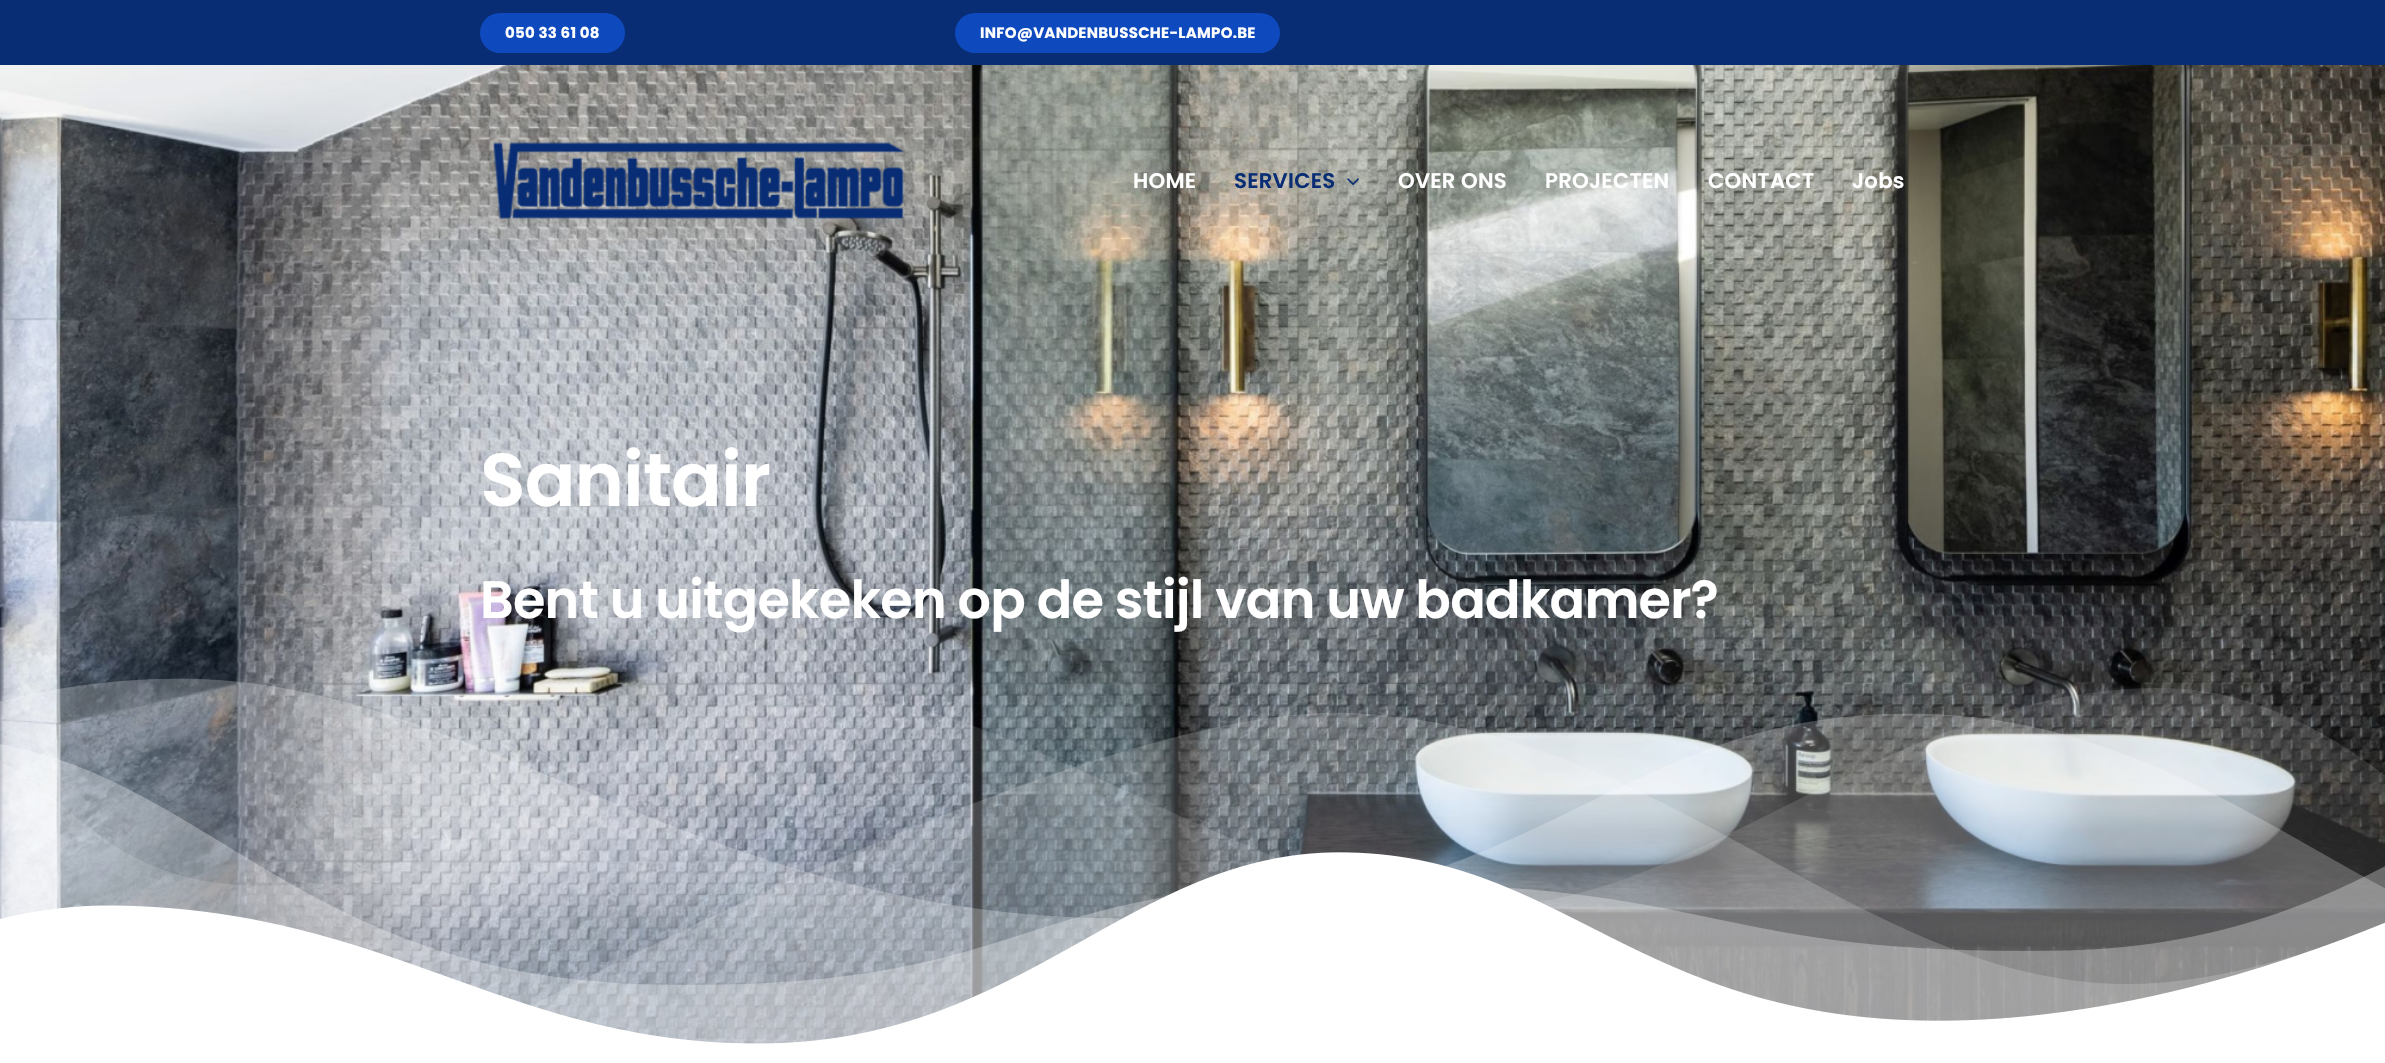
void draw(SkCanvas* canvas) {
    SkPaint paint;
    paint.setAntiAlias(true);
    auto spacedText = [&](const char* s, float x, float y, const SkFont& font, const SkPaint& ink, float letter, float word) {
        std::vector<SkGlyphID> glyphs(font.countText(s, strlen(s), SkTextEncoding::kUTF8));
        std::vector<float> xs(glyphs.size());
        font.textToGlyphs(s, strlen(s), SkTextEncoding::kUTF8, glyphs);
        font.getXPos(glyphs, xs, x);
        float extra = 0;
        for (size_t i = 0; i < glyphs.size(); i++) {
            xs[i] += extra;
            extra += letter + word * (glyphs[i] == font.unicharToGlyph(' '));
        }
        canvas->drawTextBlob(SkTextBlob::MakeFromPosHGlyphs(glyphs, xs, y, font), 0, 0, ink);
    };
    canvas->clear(0xFF092D74);
    paint.setColor(0xFF0E49BE);
    canvas->drawRoundRect(SkRect::MakeXYWH(480, 13, 145, 40), 20, 20, paint);
    SkFont font1(fontMgr->matchFamilyStyle("Poppins", SkFontStyle::Bold()), 15);
    font1.setSubpixel(true);
    paint.setColor(0xFFFFFFFF);
    spacedText("050 33 61 08", 505, 38, font1, paint, 0.25f, 0);
    paint.setColor(0xFF0E49BE);
    canvas->drawRoundRect(SkRect::MakeXYWH(955, 13, 325, 40), 20, 20, paint);
    paint.setColor(0xFFFFFFFF);
    spacedText("INFO@VANDENBUSSCHE-LAMPO.BE", 980, 38, font1, paint, 0.25f, 0);
    canvas->drawImageRect(SkImages::DeferredFromEncodedData(SkData::MakeFromFileName("img3.png")), SkRect::MakeXYWH(0, 65, 2385, 979), SkSamplingOptions());
    canvas->drawImageRect(SkImages::DeferredFromEncodedData(SkData::MakeFromFileName("img1.png")), SkRect::MakeXYWH(493, 142, 412, 77), SkSamplingOptions());
    SkFont font2(fontMgr->matchFamilyStyle("Poppins", SkFontStyle(600, SkFontStyle::kNormal_Width, SkFontStyle::kUpright_Slant)), 21.25f);
    font2.setSubpixel(true);
    spacedText("HOME", 1133, 188, font2, paint, 0.25f, 0);
    paint.setColor(0xFF092D74);
    spacedText("SERVICES", 1234, 188, font2, paint, 0.25f, 0);
    canvas->drawImageRect(SkImages::DeferredFromEncodedData(SkData::MakeFromFileName("img2.png")), SkRect::MakeXYWH(1347, 178, 12, 8), SkSamplingOptions());
    paint.setColor(0xFFFFFFFF);
    spacedText("OVER ONS", 1398, 188, font2, paint, 0.25f, 0);
    spacedText("PROJECTEN", 1545, 188, font2, paint, 0.25f, 0);
    spacedText("CONTACT", 1708, 188, font2, paint, 0.25f, 0);
    spacedText("Jobs", 1852, 188, font2, paint, 0.25f, 0);
    SkFont font3(fontMgr->matchFamilyStyle("Poppins", SkFontStyle(600, SkFontStyle::kNormal_Width, SkFontStyle::kUpright_Slant)), 75);
    font3.setSubpixel(true);
    spacedText("Sanitair", 480, 506, font3, paint, -1, 0);
    SkFont font4(fontMgr->matchFamilyStyle("Poppins", SkFontStyle(600, SkFontStyle::kNormal_Width, SkFontStyle::kUpright_Slant)), 52.5f);
    font4.setSubpixel(true);
    spacedText("Bent u uitgekeken op de stijl van uw badkamer?", 480, 618, font4, paint, -0.8f, 0);
    canvas->drawImageRect(SkImages::DeferredFromEncodedData(SkData::MakeFromFileName("img4.png")), SkRect::MakeXYWH(0, 678, 2385, 385), SkSamplingOptions());
}
